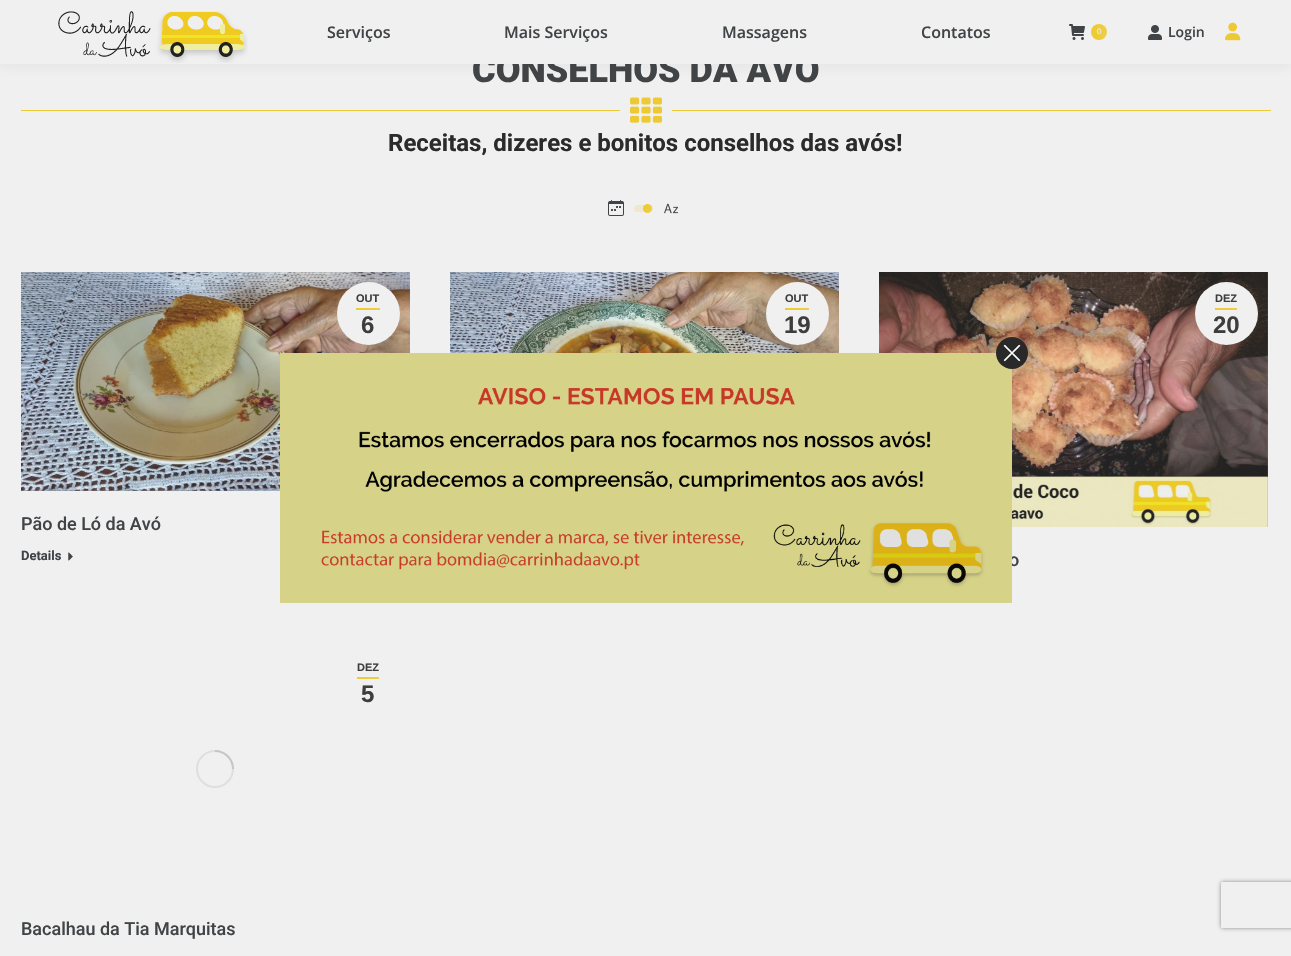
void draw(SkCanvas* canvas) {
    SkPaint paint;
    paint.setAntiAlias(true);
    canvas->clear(0xFFF0F0F0);
    paint.setColor(0x12212121);
    paint.setMaskFilter(SkMaskFilter::MakeBlur(kNormal_SkBlurStyle, 7.5f));
    canvas->drawRect(SkRect::MakeXYWH(-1, -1, 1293, 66), paint);
    paint.setMaskFilter(nullptr);
    SkFont font1(fontMgr->matchFamilyStyle("Roboto", SkFontStyle(900, SkFontStyle::kNormal_Width, SkFontStyle::kUpright_Slant)), 36);
    font1.setSubpixel(true);
    paint.setColor(0xFF404446);
    canvas->drawString("CONSELHOS DA AVÓ", 472, 82, font1, paint);
    paint.setColor(0xFFF0F0F0);
    canvas->drawRect(SkRect::MakeXYWH(0, 0, 1291, 64), paint);
    canvas->drawImageRect(SkImages::DeferredFromEncodedData(SkData::MakeFromFileName("img1.png")), SkRect::MakeXYWH(58, 11, 190, 52), SkSamplingOptions());
    SkFont font2(fontMgr->matchFamilyStyle("Open Sans", SkFontStyle(600, SkFontStyle::kNormal_Width, SkFontStyle::kUpright_Slant)), 16);
    font2.setSubpixel(true);
    paint.setColor(0xFF404446);
    canvas->drawString("Serviços", 327, 38, font2, paint);
    canvas->drawString("Mais Serviços", 504, 38, font2, paint);
    canvas->drawString("Massagens", 722, 38, font2, paint);
    canvas->drawString("Contatos", 921, 38, font2, paint);
    canvas->drawImageRect(SkImages::DeferredFromEncodedData(SkData::MakeFromFileName("img2.png")), SkRect::MakeXYWH(1069, 24, 16, 16), SkSamplingOptions());
    {
        const SkColor colors[] = {0xFFEDCB33, 0xFFEDCF4C};
        const float stops[] = {0.3f, 1};
        const SkPoint ends[] = {{1091, 32}, {1107, 32}};
        paint.setShader(SkGradientShader::MakeLinear(ends, colors, stops, 2, SkTileMode::kClamp));
        paint.setAlpha(255);
    }
    canvas->drawCircle(1099, 32, 8, paint);
    SkFont font3(fontMgr->matchFamilyStyle("Liberation Sans", SkFontStyle::Normal()), 8);
    font3.setSubpixel(true);
    paint.setShader(nullptr);
    paint.setColor(0xFFF0F0F0);
    canvas->drawString("0", 1097, 34, font3, paint);
    canvas->drawImageRect(SkImages::DeferredFromEncodedData(SkData::MakeFromFileName("img3.png")), SkRect::MakeXYWH(1148, 25, 14, 15), SkSamplingOptions());
    SkFont font4(fontMgr->matchFamilyStyle("Open Sans", SkFontStyle(600, SkFontStyle::kNormal_Width, SkFontStyle::kUpright_Slant)), 14);
    font4.setSubpixel(true);
    paint.setColor(0xFF404446);
    canvas->drawString("Login", 1168, 37, font4, paint);
    canvas->drawImageRect(SkImages::DeferredFromEncodedData(SkData::MakeFromFileName("img4.png")), SkRect::MakeXYWH(1225, 22, 16, 19), SkSamplingOptions());
    paint.setColor(0xFFEDCB33);
    canvas->drawRect(SkRect::MakeXYWH(21, 110, 599, 1), paint);
    canvas->drawImageRect(SkImages::DeferredFromEncodedData(SkData::MakeFromFileName("img5.png")), SkRect::MakeXYWH(630, 97, 32, 26), SkSamplingOptions());
    canvas->drawRect(SkRect::MakeXYWH(672, 110, 599, 1), paint);
    SkFont font5(fontMgr->matchFamilyStyle("Roboto", SkFontStyle::Bold()), 24);
    font5.setSubpixel(true);
    paint.setColor(0xFF2B2B2B);
    canvas->drawString("Receitas, dizeres e bonitos conselhos das avós!", 388, 151, font5, paint);
    canvas->drawImageRect(SkImages::DeferredFromEncodedData(SkData::MakeFromFileName("img6.png")), SkRect::MakeXYWH(608, 200, 16, 16), SkSamplingOptions());
    {
        const SkColor colors[] = {0xFFEFE8CA, 0xFFEFE9CF};
        const float stops[] = {0.3f, 1};
        const SkPoint ends[] = {{637, 202}, {650, 215}};
        paint.setShader(SkGradientShader::MakeLinear(ends, colors, stops, 2, SkTileMode::kClamp));
        paint.setAlpha(255);
    }
    canvas->drawRoundRect(SkRect::MakeXYWH(634, 205, 19, 7), 3.5f, 3.5f, paint);
    {
        const SkColor colors[] = {0xFFEDCB33, 0xFFEDCF4C};
        const float stops[] = {0.3f, 1};
        const SkPoint ends[] = {{643, 204}, {652, 213}};
        paint.setShader(SkGradientShader::MakeLinear(ends, colors, stops, 2, SkTileMode::kClamp));
        paint.setAlpha(255);
    }
    canvas->drawCircle(647.5f, 208.5f, 4.5f, paint);
    canvas->drawImageRect(SkImages::DeferredFromEncodedData(SkData::MakeFromFileName("img7.png")), SkRect::MakeXYWH(664, 203, 14, 11), SkSamplingOptions());
    canvas->drawImageRect(SkImages::DeferredFromEncodedData(SkData::MakeFromFileName("img8.png")), SkRect::MakeXYWH(21, 272, 389, 219), SkSamplingOptions());
    paint.setShader(nullptr);
    paint.setColor(0xFFF0F0F0);
    canvas->drawCircle(368.5f, 313.5f, 31.5f, paint);
    SkFont font6(fontMgr->matchFamilyStyle("Liberation Sans", SkFontStyle::Bold()), 11);
    font6.setSubpixel(true);
    paint.setColor(0xFF3D3D3D);
    canvas->drawString("OUT", 356, 302, font6, paint);
    {
        const SkColor colors[] = {0xFFEDCB33, 0xFFEDCF4C};
        const float stops[] = {0.3f, 1};
        const SkPoint ends[] = {{362, 303}, {375, 316}};
        paint.setShader(SkGradientShader::MakeLinear(ends, colors, stops, 2, SkTileMode::kClamp));
        paint.setAlpha(255);
    }
    canvas->drawRect(SkRect::MakeXYWH(356, 308, 24, 2), paint);
    SkFont font7(fontMgr->matchFamilyStyle("Liberation Sans", SkFontStyle::Bold()), 24);
    font7.setSubpixel(true);
    paint.setShader(nullptr);
    paint.setColor(0xFF3D3D3D);
    canvas->drawString("6", 361, 333, font7, paint);
    SkFont font8(fontMgr->matchFamilyStyle("Roboto", SkFontStyle(500, SkFontStyle::kNormal_Width, SkFontStyle::kUpright_Slant)), 18);
    font8.setSubpixel(true);
    paint.setColor(0xFF404446);
    canvas->drawString("Pão de Ló da Avó", 21, 530, font8, paint);
    SkFont font9(fontMgr->matchFamilyStyle("Roboto", SkFontStyle::Bold()), 13);
    font9.setSubpixel(true);
    canvas->drawString("Details", 21, 560, font9, paint);
    canvas->drawImageRect(SkImages::DeferredFromEncodedData(SkData::MakeFromFileName("img9.png")), SkRect::MakeXYWH(68, 552, 5, 9), SkSamplingOptions());
    canvas->drawImageRect(SkImages::DeferredFromEncodedData(SkData::MakeFromFileName("img10.png")), SkRect::MakeXYWH(450, 272, 389, 81), SkSamplingOptions());
    paint.setColor(0xFFF0F0F0);
    canvas->drawCircle(797.5f, 313.5f, 31.5f, paint);
    paint.setColor(0xFF3D3D3D);
    canvas->drawString("OUT", 785, 302, font6, paint);
    {
        const SkColor colors[] = {0xFFEDCB33, 0xFFEDCF4C};
        const float stops[] = {0.3f, 1};
        const SkPoint ends[] = {{791, 303}, {804, 316}};
        paint.setShader(SkGradientShader::MakeLinear(ends, colors, stops, 2, SkTileMode::kClamp));
        paint.setAlpha(255);
    }
    canvas->drawRect(SkRect::MakeXYWH(785, 308, 24, 2), paint);
    paint.setShader(nullptr);
    paint.setColor(0xFF3D3D3D);
    canvas->drawString("19", 784, 333, font7, paint);
    canvas->drawImageRect(SkImages::DeferredFromEncodedData(SkData::MakeFromFileName("img11.png")), SkRect::MakeXYWH(879, 272, 389, 255), SkSamplingOptions());
    paint.setColor(0xFFF0F0F0);
    canvas->drawCircle(1226.5f, 313.5f, 31.5f, paint);
    paint.setColor(0xFF3D3D3D);
    canvas->drawString("DEZ", 1215, 302, font6, paint);
    {
        const SkColor colors[] = {0xFFEDCB33, 0xFFEDCF4C};
        const float stops[] = {0.3f, 1};
        const SkPoint ends[] = {{1220, 303}, {1232, 315}};
        paint.setShader(SkGradientShader::MakeLinear(ends, colors, stops, 2, SkTileMode::kClamp));
        paint.setAlpha(255);
    }
    canvas->drawRect(SkRect::MakeXYWH(1215, 308, 22, 2), paint);
    paint.setShader(nullptr);
    paint.setColor(0xFF3D3D3D);
    canvas->drawString("20", 1213, 333, font7, paint);
    paint.setColor(0xFF404446);
    canvas->drawString("o", 1009, 566, font8, paint);
    paint.setColor(0xFF3D3D3D);
    canvas->drawString("DEZ", 357, 671, font6, paint);
    {
        const SkColor colors[] = {0xFFEDCB33, 0xFFEDCF4C};
        const float stops[] = {0.3f, 1};
        const SkPoint ends[] = {{362, 672}, {374, 684}};
        paint.setShader(SkGradientShader::MakeLinear(ends, colors, stops, 2, SkTileMode::kClamp));
        paint.setAlpha(255);
    }
    canvas->drawRect(SkRect::MakeXYWH(357, 677, 22, 2), paint);
    paint.setShader(nullptr);
    paint.setColor(0xFF3D3D3D);
    canvas->drawString("5", 361, 702, font7, paint);
    paint.setStyle(SkPaint::kStroke_Style);
    paint.setStrokeWidth(2);
    paint.setColor(0xFFDFDFDF);
    canvas->drawCircle(215, 769, 18, paint);
    paint.setColor(0x4074787A);
    canvas->drawPath(SkPathBuilder().moveTo(233, 769).cubicTo(233, 759, 225, 751, 215, 751).detach(), paint);
    paint.setStyle(SkPaint::kFill_Style);
    paint.setColor(0xFF404446);
    canvas->drawString("Bacalhau da Tia Marquitas", 21, 935, font8, paint);
    canvas->drawImageRect(SkImages::DeferredFromEncodedData(SkData::MakeFromFileName("img13.png")), SkRect::MakeXYWH(280, 353, 732, 250), SkSamplingOptions());
    paint.setColor(0x1F000000);
    canvas->drawRect(SkRect::MakeXYWH(280, 353, 732, 250), paint);
    paint.setColor(0xFF292929);
    canvas->drawCircle(1012, 353, 16, paint);
    canvas->drawImageRect(SkImages::DeferredFromEncodedData(SkData::MakeFromFileName("img12.png")), SkRect::MakeXYWH(1003, 344, 18, 18), SkSamplingOptions());
    canvas->save();
    canvas->clipPath(SkPathBuilder(SkPathFillType::kEvenOdd).moveTo(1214, 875).lineTo(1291, 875).lineTo(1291, 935).lineTo(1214, 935).close().moveTo(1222.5f, 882).lineTo(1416.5f, 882).cubicTo(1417.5f, 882, 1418, 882.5f, 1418, 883.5f).lineTo(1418, 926.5f).cubicTo(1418, 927.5f, 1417.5f, 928, 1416.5f, 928).lineTo(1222.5f, 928).cubicTo(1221.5f, 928, 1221, 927.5f, 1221, 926.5f).lineTo(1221, 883.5f).cubicTo(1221, 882.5f, 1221.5f, 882, 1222.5f, 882).close().detach(), true);
    paint.setColor(0xFF898989);
    paint.setMaskFilter(SkMaskFilter::MakeBlur(kNormal_SkBlurStyle, 2));
    canvas->drawRoundRect(SkRect::MakeXYWH(1221, 882, 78, 46), 1.5f, 1.5f, paint);
    paint.setMaskFilter(nullptr);
    canvas->restore();
}
